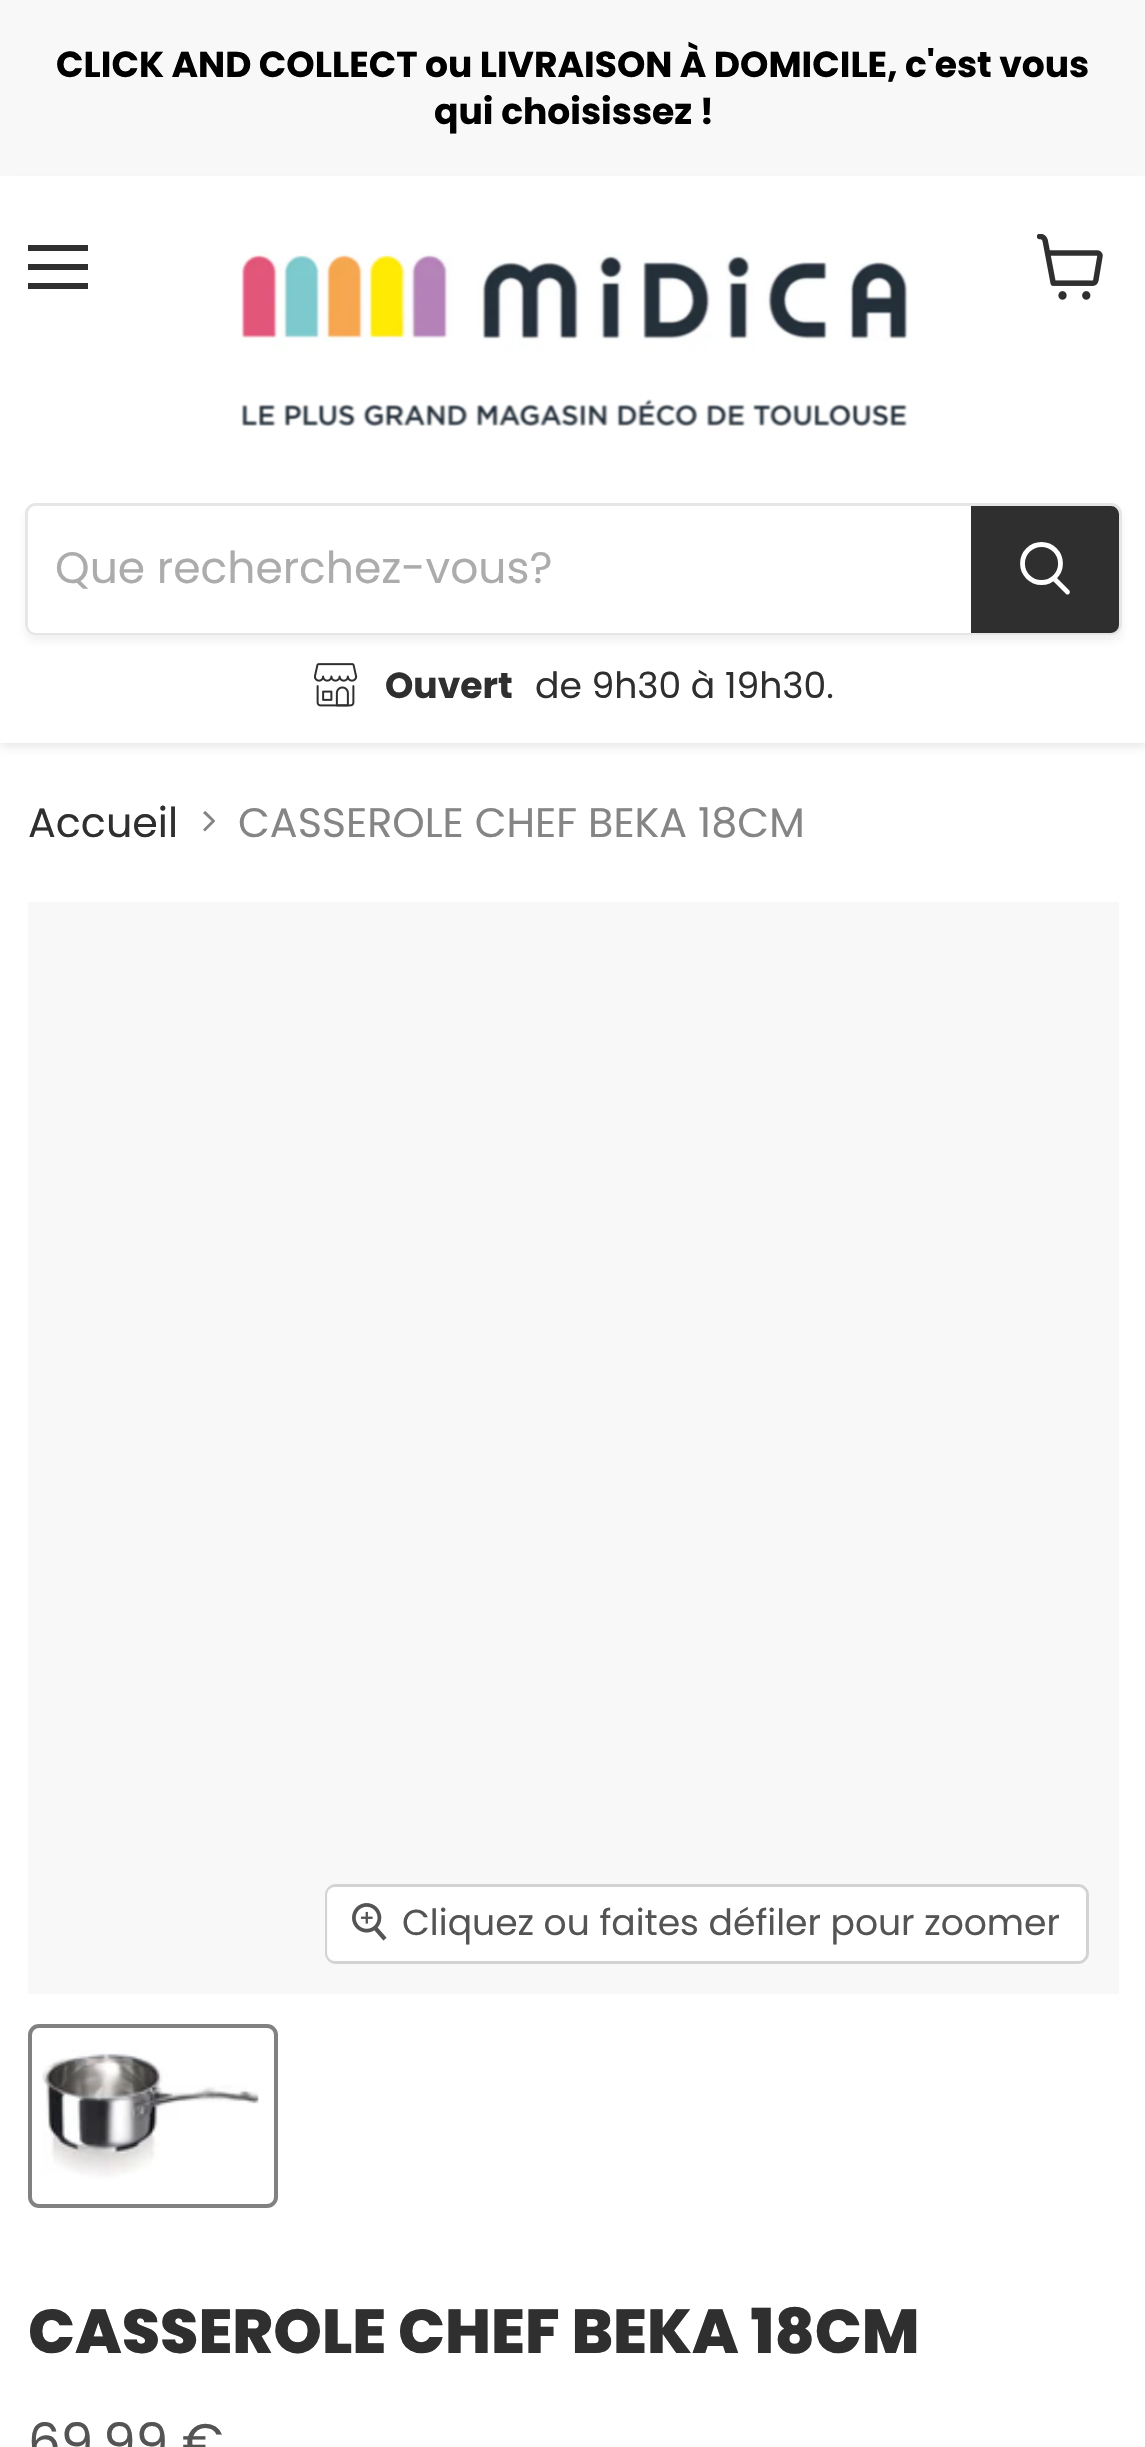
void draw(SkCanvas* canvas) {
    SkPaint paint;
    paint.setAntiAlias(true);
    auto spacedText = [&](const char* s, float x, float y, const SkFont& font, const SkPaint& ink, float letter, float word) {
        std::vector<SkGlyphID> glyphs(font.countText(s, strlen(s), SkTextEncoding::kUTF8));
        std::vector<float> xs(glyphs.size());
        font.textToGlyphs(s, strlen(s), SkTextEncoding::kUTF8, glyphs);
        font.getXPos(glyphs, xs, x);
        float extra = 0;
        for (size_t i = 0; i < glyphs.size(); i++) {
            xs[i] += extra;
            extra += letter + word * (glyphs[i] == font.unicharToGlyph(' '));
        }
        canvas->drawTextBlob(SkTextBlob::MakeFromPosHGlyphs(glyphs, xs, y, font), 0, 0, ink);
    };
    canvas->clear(0xFFFFFFFF);
    paint.setColor(0x40808080);
    paint.setMaskFilter(SkMaskFilter::MakeBlur(kNormal_SkBlurStyle, 5.5f));
    canvas->drawRect(SkRect::MakeXYWH(0, 179, 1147, 566), paint);
    paint.setMaskFilter(nullptr);
    paint.setColor(0xFFF8F8F8);
    canvas->drawRect(SkRect::MakeXYWH(0, 0, 1145, 175), paint);
    SkFont font1(fontMgr->matchFamilyStyle("Poppins", SkFontStyle::Bold()), 36.1f);
    font1.setSubpixel(true);
    paint.setColor(0xFF000000);
    spacedText("CLICK AND COLLECT ou LIVRAISON À DOMICILE, c'est vous", 56, 77, font1, paint, 0, -0.25f);
    canvas->drawString("qui choisissez !", 434, 124, font1, paint);
    paint.setColor(0xFFFFFFFF);
    canvas->drawRect(SkRect::MakeXYWH(0, 176, 1145, 567), paint);
    paint.setColor(0xFF2F2F2F);
    canvas->drawRect(SkRect::MakeXYWH(28, 245, 60, 6), paint);
    canvas->drawRect(SkRect::MakeXYWH(28, 264, 60, 6), paint);
    canvas->drawRect(SkRect::MakeXYWH(28, 283, 60, 6), paint);
    canvas->drawImageRect(SkImages::DeferredFromEncodedData(SkData::MakeFromFileName("img1.png")), SkRect::MakeXYWH(1037, 234, 66, 66), SkSamplingOptions());
    canvas->drawImageRect(SkImages::DeferredFromEncodedData(SkData::MakeFromFileName("img2.png")), SkRect::MakeXYWH(240, 252, 668, 175), SkSamplingOptions());
    paint.setColor(0x1C808080);
    paint.setMaskFilter(SkMaskFilter::MakeBlur(kNormal_SkBlurStyle, 4));
    canvas->drawRoundRect(SkRect::MakeXYWH(25, 509, 1097, 132), 11, 11, paint);
    paint.setMaskFilter(nullptr);
    paint.setStyle(SkPaint::kStroke_Style);
    paint.setStrokeWidth(3);
    paint.setColor(0xFFE6E6E6);
    canvas->drawRoundRect(SkRect::MakeXYWH(26.5f, 504.5f, 1094, 129), 9.5f, 9.5f, paint);
    paint.setStyle(SkPaint::kFill_Style);
    paint.setColor(0xFFFFFFFF);
    canvas->drawPath(SkPathBuilder().moveTo(36, 506).lineTo(971, 506).lineTo(971, 633).lineTo(36, 633).cubicTo(31.5f, 633, 28, 629.5f, 28, 625).lineTo(28, 514).cubicTo(28, 509.5f, 31.5f, 506, 36, 506).close().detach(), paint);
    SkFont font2(fontMgr->matchFamilyStyle("Poppins", SkFontStyle::Normal()), 44);
    font2.setSubpixel(true);
    paint.setColor(0xFFACACAC);
    canvas->drawString("Que recherchez-vous?", 55, 583, font2, paint);
    paint.setColor(0xFF2F2F2F);
    canvas->drawPath(SkPathBuilder().moveTo(972.5f, 507.5f).lineTo(1111, 507.5f).cubicTo(1114.5f, 507.5f, 1117.5f, 510.5f, 1117.5f, 514).lineTo(1117.5f, 625).cubicTo(1117.5f, 628.5f, 1114.5f, 631.5f, 1111, 631.5f).lineTo(972.5f, 631.5f).close().detach(), paint);
    paint.setStyle(SkPaint::kStroke_Style);
    canvas->drawPath(SkPathBuilder().moveTo(972.5f, 507.5f).lineTo(1111, 507.5f).cubicTo(1114.5f, 507.5f, 1117.5f, 510.5f, 1117.5f, 514).lineTo(1117.5f, 625).cubicTo(1117.5f, 628.5f, 1114.5f, 631.5f, 1111, 631.5f).lineTo(972.5f, 631.5f).close().detach(), paint);
    paint.setStrokeWidth(4.8f);
    paint.setStrokeCap(SkPaint::kRound_Cap);
    paint.setColor(0xFFFFFFFF);
    canvas->drawPath(SkPathBuilder().moveTo(1067.5f, 592).lineTo(1054.5f, 579).detach(), paint);
    paint.setStrokeCap(SkPaint::kButt_Cap);
    canvas->drawCircle(1041.5f, 563.5f, 19, paint);
    canvas->drawImageRect(SkImages::DeferredFromEncodedData(SkData::MakeFromFileName("img3.png")), SkRect::MakeXYWH(314, 663, 44, 44), SkSamplingOptions());
    paint.setStyle(SkPaint::kFill_Style);
    paint.setColor(0xFF2F2F2F);
    canvas->drawString("Ouvert", 385, 698, font1, paint);
    SkFont font3(fontMgr->matchFamilyStyle("Poppins", SkFontStyle::Normal()), 36.1f);
    font3.setSubpixel(true);
    canvas->drawString("de 9h30 à 19h30.", 535, 698, font3, paint);
    SkFont font4(fontMgr->matchFamilyStyle("Poppins", SkFontStyle::Normal()), 41.25f);
    font4.setSubpixel(true);
    canvas->drawString("Accueil", 28, 837, font4, paint);
    paint.setColor(0xFF858585);
    canvas->drawPath(SkPathBuilder().moveTo(203, 829.5f).lineTo(211.5f, 821).lineTo(203, 813).lineTo(205, 811).lineTo(205.5f, 811).lineTo(215, 820.5f).lineTo(215, 821.5f).lineTo(205, 831.5f).close().detach(), paint);
    canvas->drawString("CASSEROLE CHEF BEKA 18CM", 238, 837, font4, paint);
    paint.setColor(0xFFF8F8F8);
    canvas->drawRect(SkRect::MakeXYWH(28, 902, 1091, 1092), paint);
    paint.setStyle(SkPaint::kStroke_Style);
    paint.setStrokeWidth(3);
    paint.setColor(0xFFD3D3D3);
    canvas->drawRoundRect(SkRect::MakeXYWH(326.5f, 1885.5f, 761, 77), 9.5f, 9.5f, paint);
    paint.setStyle(SkPaint::kFill_Style);
    paint.setColor(0xE6FFFFFF);
    canvas->drawRoundRect(SkRect::MakeXYWH(327, 1887, 759, 74), 8, 8, paint);
    canvas->drawImageRect(SkImages::DeferredFromEncodedData(SkData::MakeFromFileName("img4.png")), SkRect::MakeXYWH(352, 1903, 35, 38), SkSamplingOptions());
    paint.setColor(0xFF545454);
    canvas->drawString("Cliquez ou faites défiler pour zoomer", 402, 1935, font3, paint);
    paint.setStyle(SkPaint::kStroke_Style);
    paint.setStrokeWidth(4);
    paint.setColor(0xFF818181);
    canvas->drawRoundRect(SkRect::MakeXYWH(30, 2026, 246, 180), 9, 9, paint);
    canvas->drawImageRect(SkImages::DeferredFromEncodedData(SkData::MakeFromFileName("img5.png")), SkRect::MakeXYWH(42, 2050, 217, 129), SkSamplingOptions());
    SkFont font5(fontMgr->matchFamilyStyle("Poppins", SkFontStyle(800, SkFontStyle::kNormal_Width, SkFontStyle::kUpright_Slant)), 61.9f);
    font5.setSubpixel(true);
    paint.setStyle(SkPaint::kFill_Style);
    paint.setColor(0xFF2F2F2F);
    canvas->drawString("CASSEROLE CHEF BEKA 18CM", 28, 2353, font5, paint);
    SkFont font6(fontMgr->matchFamilyStyle("Poppins", SkFontStyle::Normal()), 51.5f);
    font6.setSubpixel(true);
    paint.setColor(0xFF545454);
    canvas->drawString("69,99 €", 28, 2460, font6, paint);
}
